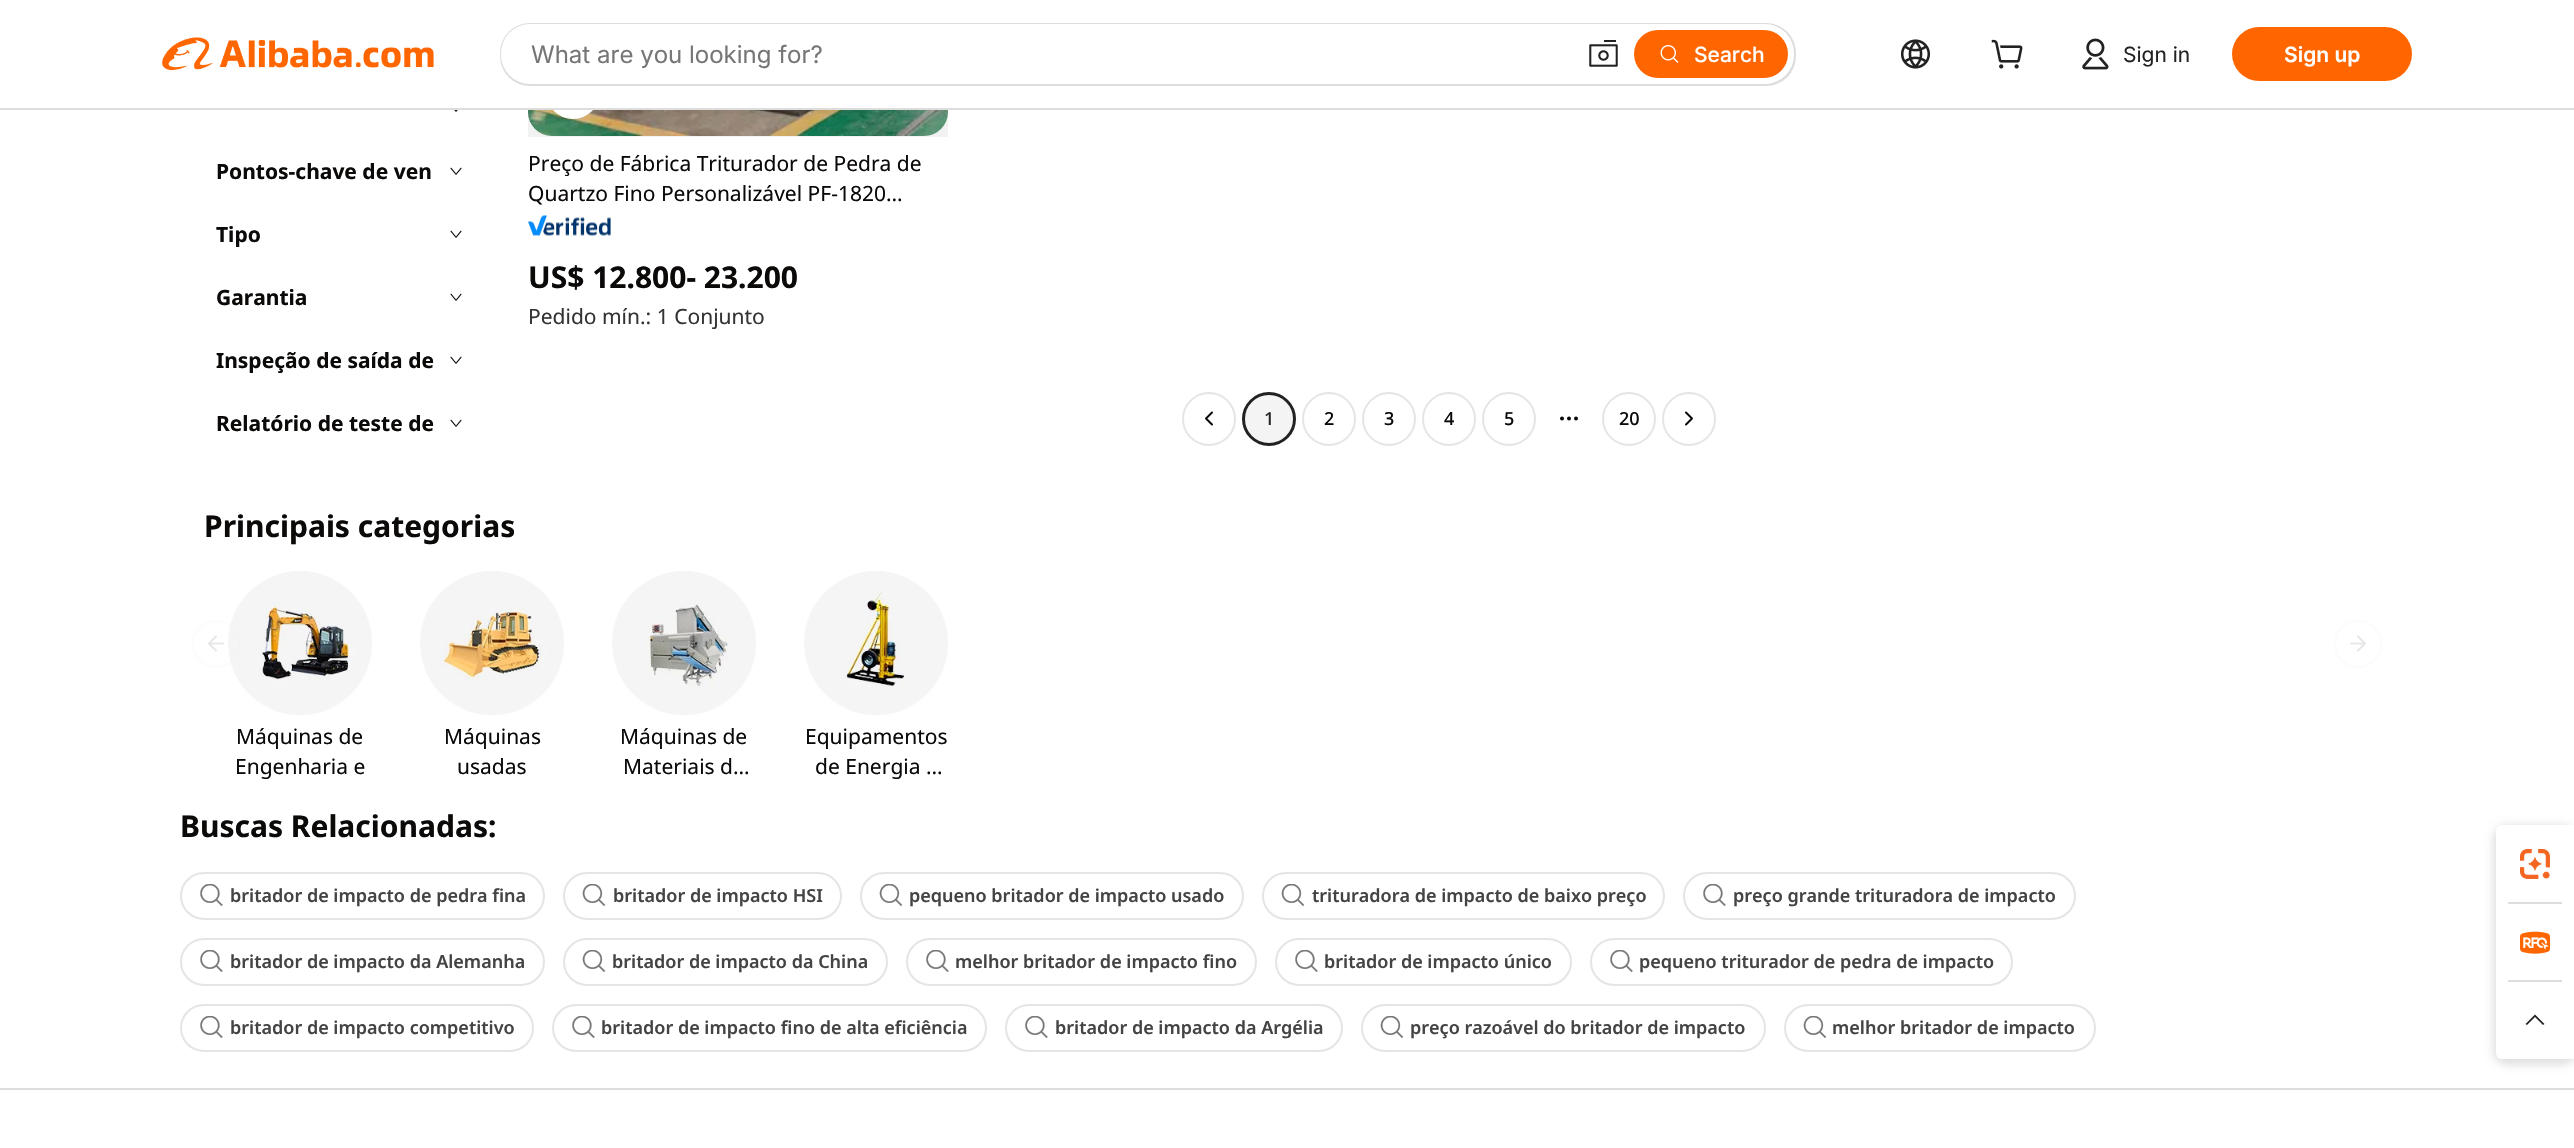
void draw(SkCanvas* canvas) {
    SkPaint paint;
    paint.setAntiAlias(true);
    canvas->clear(0xFFFFFFFF);
    canvas->drawImageRect(SkImages::DeferredFromEncodedData(SkData::MakeFromFileName("img9.png")), SkRect::MakeXYWH(528, 110, 420, 26), SkSamplingOptions());
    paint.setColor(0x0D000000);
    canvas->drawRect(SkRect::MakeXYWH(528, 110, 420, 27), paint);
    paint.setColor(0xFFFFFFFF);
    canvas->drawCircle(573, 92, 27, paint);
    paint.setColor(0xFFDDDDDD);
    canvas->drawRect(SkRect::MakeXYWH(0, 108, 2574, 2), paint);
    canvas->drawImageRect(SkImages::DeferredFromEncodedData(SkData::MakeFromFileName("img1.png")), SkRect::MakeXYWH(162, 37, 272, 34), SkSamplingOptions());
    canvas->drawRoundRect(SkRect::MakeXYWH(500, 23, 1296, 63), 30, 30, paint);
    paint.setColor(0xFFFFFFFF);
    canvas->drawRoundRect(SkRect::MakeXYWH(501, 24, 1293, 60), 29, 29, paint);
    SkFont font1(fontMgr->matchFamilyStyle("Inter", SkFontStyle::Normal()), 24);
    font1.setSubpixel(true);
    paint.setColor(0xFF767676);
    canvas->drawString("What are you looking for?", 531, 63, font1, paint);
    canvas->drawImageRect(SkImages::DeferredFromEncodedData(SkData::MakeFromFileName("img2.png")), SkRect::MakeXYWH(1589, 40, 29, 27), SkSamplingOptions());
    paint.setColor(0xFFFF6600);
    canvas->drawRoundRect(SkRect::MakeXYWH(1634, 30, 154, 48), 24, 24, paint);
    canvas->drawImageRect(SkImages::DeferredFromEncodedData(SkData::MakeFromFileName("img3.png")), SkRect::MakeXYWH(1660, 45, 19, 18), SkSamplingOptions());
    SkFont font2(fontMgr->matchFamilyStyle("Inter", SkFontStyle(500, SkFontStyle::kNormal_Width, SkFontStyle::kUpright_Slant)), 21);
    font2.setSubpixel(true);
    paint.setColor(0xFFFFFFFF);
    canvas->drawString("Search", 1694, 62, font2, paint);
    canvas->drawImageRect(SkImages::DeferredFromEncodedData(SkData::MakeFromFileName("img4.png")), SkRect::MakeXYWH(1901, 39, 29, 30), SkSamplingOptions());
    canvas->drawImageRect(SkImages::DeferredFromEncodedData(SkData::MakeFromFileName("img5.png")), SkRect::MakeXYWH(1991, 39, 32, 30), SkSamplingOptions());
    canvas->drawImageRect(SkImages::DeferredFromEncodedData(SkData::MakeFromFileName("img6.png")), SkRect::MakeXYWH(2082, 38, 27, 32), SkSamplingOptions());
    SkFont font3(fontMgr->matchFamilyStyle("Inter", SkFontStyle::Normal()), 21);
    font3.setSubpixel(true);
    paint.setColor(0xFF222222);
    canvas->drawString("Sign in", 2123, 62, font3, paint);
    paint.setColor(0xFFFF6600);
    canvas->drawRoundRect(SkRect::MakeXYWH(2232, 27, 180, 54), 27, 27, paint);
    SkFont font4(fontMgr->matchFamilyStyle("Inter", SkFontStyle(600, SkFontStyle::kNormal_Width, SkFontStyle::kUpright_Slant)), 21);
    font4.setSubpixel(true);
    paint.setColor(0xFFFFFFFF);
    canvas->drawString("Sign up", 2284, 62, font4, paint);
    canvas->drawImageRect(SkImages::DeferredFromEncodedData(SkData::MakeFromFileName("img7.png")), SkRect::MakeXYWH(454, 110, 4, 2), SkSamplingOptions());
    SkFont font5(fontMgr->matchFamilyStyle("Noto Sans", SkFontStyle::Bold()), 21);
    font5.setSubpixel(true);
    paint.setColor(0xFF0C0A09);
    canvas->drawString("Pontos-chave de ven", 216, 179, font5, paint);
    canvas->drawImageRect(SkImages::DeferredFromEncodedData(SkData::MakeFromFileName("img8.png")), SkRect::MakeXYWH(450, 167, 12, 8), SkSamplingOptions());
    canvas->drawString("Tipo", 216, 242, font5, paint);
    canvas->drawImageRect(SkImages::DeferredFromEncodedData(SkData::MakeFromFileName("img8.png")), SkRect::MakeXYWH(450, 230, 12, 8), SkSamplingOptions());
    canvas->drawString("Garantia", 216, 305, font5, paint);
    canvas->drawImageRect(SkImages::DeferredFromEncodedData(SkData::MakeFromFileName("img8.png")), SkRect::MakeXYWH(450, 293, 12, 8), SkSamplingOptions());
    canvas->drawString("Inspeção de saída de", 216, 368, font5, paint);
    canvas->drawImageRect(SkImages::DeferredFromEncodedData(SkData::MakeFromFileName("img8.png")), SkRect::MakeXYWH(450, 356, 12, 8), SkSamplingOptions());
    canvas->drawString("Relatório de teste de", 216, 431, font5, paint);
    canvas->drawImageRect(SkImages::DeferredFromEncodedData(SkData::MakeFromFileName("img8.png")), SkRect::MakeXYWH(450, 419, 12, 8), SkSamplingOptions());
    SkFont font6(fontMgr->matchFamilyStyle("Noto Sans", SkFontStyle::Normal()), 21);
    font6.setSubpixel(true);
    canvas->drawString("Preço de Fábrica Triturador de Pedra de", 528, 171, font6, paint);
    canvas->drawString("Quartzo Fino Personalizável PF-1820…", 528, 201, font6, paint);
    canvas->drawImageRect(SkImages::DeferredFromEncodedData(SkData::MakeFromFileName("img10.png")), SkRect::MakeXYWH(528, 215, 83, 21), SkSamplingOptions());
    SkFont font7(fontMgr->matchFamilyStyle("Noto Sans", SkFontStyle::Bold()), 30);
    font7.setSubpixel(true);
    canvas->drawString("US$ 12.800- 23.200", 528, 288, font7, paint);
    paint.setColor(0xFF333333);
    canvas->drawString("Pedido mín.: 1 Conjunto", 528, 324, font6, paint);
    paint.setStyle(SkPaint::kStroke_Style);
    paint.setStrokeWidth(2);
    paint.setColor(0xFFE7E5E4);
    canvas->drawCircle(1209, 419, 26, paint);
    paint.setStrokeCap(SkPaint::kRound_Cap);
    paint.setStrokeJoin(SkPaint::kRound_Join);
    paint.setColor(0xFF0C0A09);
    canvas->drawPath(SkPathBuilder().moveTo(1212, 424.5f).lineTo(1206, 418.5f).lineTo(1212, 412.5f).detach(), paint);
    paint.setStyle(SkPaint::kFill_Style);
    paint.setColor(0xFFF4F4F4);
    canvas->drawCircle(1269, 419, 25.5f, paint);
    paint.setStyle(SkPaint::kStroke_Style);
    paint.setStrokeWidth(3);
    paint.setStrokeCap(SkPaint::kButt_Cap);
    paint.setStrokeJoin(SkPaint::kMiter_Join);
    paint.setColor(0xFF222222);
    canvas->drawCircle(1269, 419, 25.5f, paint);
    SkFont font8(fontMgr->matchFamilyStyle("Noto Sans", SkFontStyle(500, SkFontStyle::kNormal_Width, SkFontStyle::kUpright_Slant)), 18);
    font8.setSubpixel(true);
    paint.setStyle(SkPaint::kFill_Style);
    canvas->drawString("1", 1264, 425, font8, paint);
    paint.setStyle(SkPaint::kStroke_Style);
    paint.setStrokeWidth(2);
    paint.setColor(0xFFE7E5E4);
    canvas->drawCircle(1329, 419, 26, paint);
    paint.setStyle(SkPaint::kFill_Style);
    paint.setColor(0xFF0C0A09);
    canvas->drawString("2", 1324, 425, font8, paint);
    paint.setStyle(SkPaint::kStroke_Style);
    paint.setColor(0xFFE7E5E4);
    canvas->drawCircle(1389, 419, 26, paint);
    paint.setStyle(SkPaint::kFill_Style);
    paint.setColor(0xFF0C0A09);
    canvas->drawString("3", 1384, 425, font8, paint);
    paint.setStyle(SkPaint::kStroke_Style);
    paint.setColor(0xFFE7E5E4);
    canvas->drawCircle(1449, 419, 26, paint);
    paint.setStyle(SkPaint::kFill_Style);
    paint.setColor(0xFF0C0A09);
    canvas->drawString("4", 1444, 425, font8, paint);
    paint.setStyle(SkPaint::kStroke_Style);
    paint.setColor(0xFFE7E5E4);
    canvas->drawCircle(1509, 419, 26, paint);
    paint.setStyle(SkPaint::kFill_Style);
    paint.setColor(0xFF0C0A09);
    canvas->drawString("5", 1504, 425, font8, paint);
    paint.setStyle(SkPaint::kStroke_Style);
    canvas->drawCircle(1569, 418.5f, 1, paint);
    canvas->drawCircle(1576, 418.5f, 1, paint);
    canvas->drawCircle(1562, 418.5f, 1, paint);
    paint.setColor(0xFFE7E5E4);
    canvas->drawCircle(1629, 419, 26, paint);
    paint.setStyle(SkPaint::kFill_Style);
    paint.setColor(0xFF0C0A09);
    canvas->drawString("20", 1619, 425, font8, paint);
    paint.setStyle(SkPaint::kStroke_Style);
    paint.setColor(0xFFE7E5E4);
    canvas->drawCircle(1689, 419, 26, paint);
    paint.setStrokeCap(SkPaint::kRound_Cap);
    paint.setStrokeJoin(SkPaint::kRound_Join);
    paint.setColor(0xFF0C0A09);
    canvas->drawPath(SkPathBuilder().moveTo(1686, 424.5f).lineTo(1692, 418.5f).lineTo(1686, 412.5f).detach(), paint);
    paint.setStyle(SkPaint::kFill_Style);
    canvas->drawString("Principais categorias", 204, 537, font7, paint);
    canvas->drawImageRect(SkImages::DeferredFromEncodedData(SkData::MakeFromFileName("img11.png")), SkRect::MakeXYWH(228, 571, 144, 144), SkSamplingOptions());
    paint.setStyle(SkPaint::kStroke_Style);
    paint.setStrokeCap(SkPaint::kButt_Cap);
    paint.setStrokeJoin(SkPaint::kMiter_Join);
    paint.setColor(0x1AE7E5E4);
    canvas->drawCircle(216, 644, 23, paint);
    paint.setStrokeCap(SkPaint::kRound_Cap);
    paint.setStrokeJoin(SkPaint::kRound_Join);
    paint.setColor(0xFFE7E7E6);
    canvas->drawPath(SkPathBuilder().moveTo(216, 650.5f).lineTo(209, 643.5f).lineTo(216, 636.5f).moveTo(223, 643.5f).lineTo(209, 643.5f).detach(), paint);
    paint.setStrokeCap(SkPaint::kButt_Cap);
    paint.setStrokeJoin(SkPaint::kMiter_Join);
    paint.setColor(0xFFFDFCFC);
    canvas->drawCircle(2358, 644, 23, paint);
    paint.setStrokeCap(SkPaint::kRound_Cap);
    paint.setStrokeJoin(SkPaint::kRound_Join);
    paint.setColor(0xFFE7E7E6);
    canvas->drawPath(SkPathBuilder().moveTo(2351, 643.5f).lineTo(2365, 643.5f).moveTo(2358, 636.5f).lineTo(2365, 643.5f).lineTo(2358, 650.5f).detach(), paint);
    paint.setStyle(SkPaint::kFill_Style);
    paint.setColor(0xFF0C0A09);
    canvas->drawString("Máquinas de", 236, 744, font6, paint);
    canvas->drawString("Engenharia e", 235, 774, font6, paint);
    canvas->drawImageRect(SkImages::DeferredFromEncodedData(SkData::MakeFromFileName("img12.png")), SkRect::MakeXYWH(420, 571, 144, 144), SkSamplingOptions());
    canvas->drawString("Máquinas", 444, 744, font6, paint);
    canvas->drawString("usadas", 457, 774, font6, paint);
    canvas->drawImageRect(SkImages::DeferredFromEncodedData(SkData::MakeFromFileName("img13.png")), SkRect::MakeXYWH(612, 571, 144, 144), SkSamplingOptions());
    canvas->drawString("Máquinas de", 620, 744, font6, paint);
    canvas->drawString("Materiais d…", 623, 774, font6, paint);
    canvas->drawImageRect(SkImages::DeferredFromEncodedData(SkData::MakeFromFileName("img14.png")), SkRect::MakeXYWH(804, 571, 144, 144), SkSamplingOptions());
    canvas->drawString("Equipamentos", 805, 744, font6, paint);
    canvas->drawString("de Energia …", 815, 774, font6, paint);
    canvas->drawString("Buscas Relacionadas:", 180, 837, font7, paint);
    paint.setStyle(SkPaint::kStroke_Style);
    paint.setStrokeCap(SkPaint::kButt_Cap);
    paint.setStrokeJoin(SkPaint::kMiter_Join);
    paint.setColor(0xFFE7E5E4);
    canvas->drawRoundRect(SkRect::MakeXYWH(181, 873, 363, 46), 23, 23, paint);
    canvas->drawImageRect(SkImages::DeferredFromEncodedData(SkData::MakeFromFileName("img15.png")), SkRect::MakeXYWH(200, 884, 23, 22), SkSamplingOptions());
    SkFont font9(fontMgr->matchFamilyStyle("Noto Sans", SkFontStyle(600, SkFontStyle::kNormal_Width, SkFontStyle::kUpright_Slant)), 18);
    font9.setSubpixel(true);
    paint.setStyle(SkPaint::kFill_Style);
    paint.setColor(0xFF444444);
    canvas->drawString("britador de impacto de pedra fina", 230, 902, font9, paint);
    paint.setStyle(SkPaint::kStroke_Style);
    paint.setColor(0xFFE7E5E4);
    canvas->drawRoundRect(SkRect::MakeXYWH(564, 873, 277, 46), 23, 23, paint);
    canvas->drawImageRect(SkImages::DeferredFromEncodedData(SkData::MakeFromFileName("img16.png")), SkRect::MakeXYWH(582, 884, 24, 22), SkSamplingOptions());
    paint.setStyle(SkPaint::kFill_Style);
    paint.setColor(0xFF444444);
    canvas->drawString("britador de impacto HSI", 613, 902, font9, paint);
    paint.setStyle(SkPaint::kStroke_Style);
    paint.setColor(0xFFE7E5E4);
    canvas->drawRoundRect(SkRect::MakeXYWH(861, 873, 382, 46), 23, 23, paint);
    canvas->drawImageRect(SkImages::DeferredFromEncodedData(SkData::MakeFromFileName("img16.png")), SkRect::MakeXYWH(879, 884, 24, 22), SkSamplingOptions());
    paint.setStyle(SkPaint::kFill_Style);
    paint.setColor(0xFF444444);
    canvas->drawString("pequeno britador de impacto usado", 909, 902, font9, paint);
    paint.setStyle(SkPaint::kStroke_Style);
    paint.setColor(0xFFE7E5E4);
    canvas->drawRoundRect(SkRect::MakeXYWH(1263, 873, 401, 46), 23, 23, paint);
    canvas->drawImageRect(SkImages::DeferredFromEncodedData(SkData::MakeFromFileName("img16.png")), SkRect::MakeXYWH(1281, 884, 24, 22), SkSamplingOptions());
    paint.setStyle(SkPaint::kFill_Style);
    paint.setColor(0xFF444444);
    canvas->drawString("trituradora de impacto de baixo preço", 1312, 902, font9, paint);
    paint.setStyle(SkPaint::kStroke_Style);
    paint.setColor(0xFFE7E5E4);
    canvas->drawRoundRect(SkRect::MakeXYWH(1684, 873, 391, 46), 23, 23, paint);
    canvas->drawImageRect(SkImages::DeferredFromEncodedData(SkData::MakeFromFileName("img15.png")), SkRect::MakeXYWH(1703, 884, 23, 22), SkSamplingOptions());
    paint.setStyle(SkPaint::kFill_Style);
    paint.setColor(0xFF444444);
    canvas->drawString("preço grande trituradora de impacto", 1733, 902, font9, paint);
    paint.setStyle(SkPaint::kStroke_Style);
    paint.setColor(0xFFE7E5E4);
    canvas->drawRoundRect(SkRect::MakeXYWH(181, 939, 363, 46), 23, 23, paint);
    canvas->drawImageRect(SkImages::DeferredFromEncodedData(SkData::MakeFromFileName("img15.png")), SkRect::MakeXYWH(200, 950, 23, 22), SkSamplingOptions());
    paint.setStyle(SkPaint::kFill_Style);
    paint.setColor(0xFF444444);
    canvas->drawString("britador de impacto da Alemanha", 230, 968, font9, paint);
    paint.setStyle(SkPaint::kStroke_Style);
    paint.setColor(0xFFE7E5E4);
    canvas->drawRoundRect(SkRect::MakeXYWH(564, 939, 323, 46), 23, 23, paint);
    canvas->drawImageRect(SkImages::DeferredFromEncodedData(SkData::MakeFromFileName("img16.png")), SkRect::MakeXYWH(582, 950, 24, 22), SkSamplingOptions());
    paint.setStyle(SkPaint::kFill_Style);
    paint.setColor(0xFF444444);
    canvas->drawString("britador de impacto da China", 612, 968, font9, paint);
    paint.setStyle(SkPaint::kStroke_Style);
    paint.setColor(0xFFE7E5E4);
    canvas->drawRoundRect(SkRect::MakeXYWH(907, 939, 349, 46), 23, 23, paint);
    canvas->drawImageRect(SkImages::DeferredFromEncodedData(SkData::MakeFromFileName("img15.png")), SkRect::MakeXYWH(926, 950, 23, 22), SkSamplingOptions());
    paint.setStyle(SkPaint::kFill_Style);
    paint.setColor(0xFF444444);
    canvas->drawString("melhor britador de impacto fino", 955, 968, font9, paint);
    paint.setStyle(SkPaint::kStroke_Style);
    paint.setColor(0xFFE7E5E4);
    canvas->drawRoundRect(SkRect::MakeXYWH(1276, 939, 295, 46), 23, 23, paint);
    canvas->drawImageRect(SkImages::DeferredFromEncodedData(SkData::MakeFromFileName("img15.png")), SkRect::MakeXYWH(1295, 950, 23, 22), SkSamplingOptions());
    paint.setStyle(SkPaint::kFill_Style);
    paint.setColor(0xFF444444);
    canvas->drawString("britador de impacto único", 1324, 968, font9, paint);
    paint.setStyle(SkPaint::kStroke_Style);
    paint.setColor(0xFFE7E5E4);
    canvas->drawRoundRect(SkRect::MakeXYWH(1591, 939, 421, 46), 23, 23, paint);
    canvas->drawImageRect(SkImages::DeferredFromEncodedData(SkData::MakeFromFileName("img15.png")), SkRect::MakeXYWH(1610, 950, 23, 22), SkSamplingOptions());
    paint.setStyle(SkPaint::kFill_Style);
    paint.setColor(0xFF444444);
    canvas->drawString("pequeno triturador de pedra de impacto", 1639, 968, font9, paint);
    paint.setStyle(SkPaint::kStroke_Style);
    paint.setColor(0xFFE7E5E4);
    canvas->drawRoundRect(SkRect::MakeXYWH(181, 1005, 352, 46), 23, 23, paint);
    canvas->drawImageRect(SkImages::DeferredFromEncodedData(SkData::MakeFromFileName("img15.png")), SkRect::MakeXYWH(200, 1016, 23, 22), SkSamplingOptions());
    paint.setStyle(SkPaint::kFill_Style);
    paint.setColor(0xFF444444);
    canvas->drawString("britador de impacto competitivo", 230, 1034, font9, paint);
    paint.setStyle(SkPaint::kStroke_Style);
    paint.setColor(0xFFE7E5E4);
    canvas->drawRoundRect(SkRect::MakeXYWH(553, 1005, 433, 46), 23, 23, paint);
    canvas->drawImageRect(SkImages::DeferredFromEncodedData(SkData::MakeFromFileName("img15.png")), SkRect::MakeXYWH(572, 1016, 23, 22), SkSamplingOptions());
    paint.setStyle(SkPaint::kFill_Style);
    paint.setColor(0xFF444444);
    canvas->drawString("britador de impacto fino de alta eficiência", 601, 1034, font9, paint);
    paint.setStyle(SkPaint::kStroke_Style);
    paint.setColor(0xFFE7E5E4);
    canvas->drawRoundRect(SkRect::MakeXYWH(1006, 1005, 336, 46), 23, 23, paint);
    canvas->drawImageRect(SkImages::DeferredFromEncodedData(SkData::MakeFromFileName("img15.png")), SkRect::MakeXYWH(1025, 1016, 23, 22), SkSamplingOptions());
    paint.setStyle(SkPaint::kFill_Style);
    paint.setColor(0xFF444444);
    canvas->drawString("britador de impacto da Argélia", 1055, 1034, font9, paint);
    paint.setStyle(SkPaint::kStroke_Style);
    paint.setColor(0xFFE7E5E4);
    canvas->drawRoundRect(SkRect::MakeXYWH(1362, 1005, 403, 46), 23, 23, paint);
    canvas->drawImageRect(SkImages::DeferredFromEncodedData(SkData::MakeFromFileName("img16.png")), SkRect::MakeXYWH(1380, 1016, 24, 22), SkSamplingOptions());
    paint.setStyle(SkPaint::kFill_Style);
    paint.setColor(0xFF444444);
    canvas->drawString("preço razoável do britador de impacto", 1410, 1034, font9, paint);
    paint.setStyle(SkPaint::kStroke_Style);
    paint.setColor(0xFFE7E5E4);
    canvas->drawRoundRect(SkRect::MakeXYWH(1785, 1005, 310, 46), 23, 23, paint);
    canvas->drawImageRect(SkImages::DeferredFromEncodedData(SkData::MakeFromFileName("img16.png")), SkRect::MakeXYWH(1803, 1016, 24, 22), SkSamplingOptions());
    paint.setStyle(SkPaint::kFill_Style);
    paint.setColor(0xFF444444);
    canvas->drawString("melhor britador de impacto", 1832, 1034, font9, paint);
    paint.setColor(0x1F000000);
    paint.setMaskFilter(SkMaskFilter::MakeBlur(kNormal_SkBlurStyle, 4.5f));
    canvas->drawRoundRect(SkRect::MakeXYWH(2493, 825, 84, 240), 15, 15, paint);
    paint.setMaskFilter(nullptr);
    paint.setColor(0xFFFFFFFF);
    canvas->drawPath(SkPathBuilder().moveTo(2508, 825).lineTo(2574, 825).lineTo(2574, 1059).lineTo(2508, 1059).cubicTo(2501.5f, 1059, 2496, 1053.5f, 2496, 1047).lineTo(2496, 837).cubicTo(2496, 830.5f, 2501.5f, 825, 2508, 825).close().detach(), paint);
    canvas->drawRoundRect(SkRect::MakeXYWH(2496, 825, 78, 78), 6, 6, paint);
    canvas->drawImageRect(SkImages::DeferredFromEncodedData(SkData::MakeFromFileName("img17.png")), SkRect::MakeXYWH(2520, 849, 30, 30), SkSamplingOptions());
    paint.setColor(0xFFDDDDDD);
    canvas->drawRect(SkRect::MakeXYWH(2508, 902, 54, 2), paint);
    canvas->drawImageRect(SkImages::DeferredFromEncodedData(SkData::MakeFromFileName("img18.png")), SkRect::MakeXYWH(2520, 931, 30, 23), SkSamplingOptions());
    paint.setColor(0xFFFFFFFF);
    canvas->drawRoundRect(SkRect::MakeXYWH(2496, 981, 78, 78), 6, 6, paint);
    paint.setColor(0xFFDDDDDD);
    canvas->drawRect(SkRect::MakeXYWH(2508, 980, 54, 2), paint);
    paint.setColor(0xFF222222);
    canvas->drawPath(SkPathBuilder().moveTo(2535, 1014.5f).lineTo(2544.5f, 1024).lineTo(2543, 1025).lineTo(2535, 1017).lineTo(2527, 1025).lineTo(2525.5f, 1024).close().detach(), paint);
    paint.setColor(0xFFDDDDDD);
    canvas->drawRect(SkRect::MakeXYWH(0, 1088, 2574, 2), paint);
}
